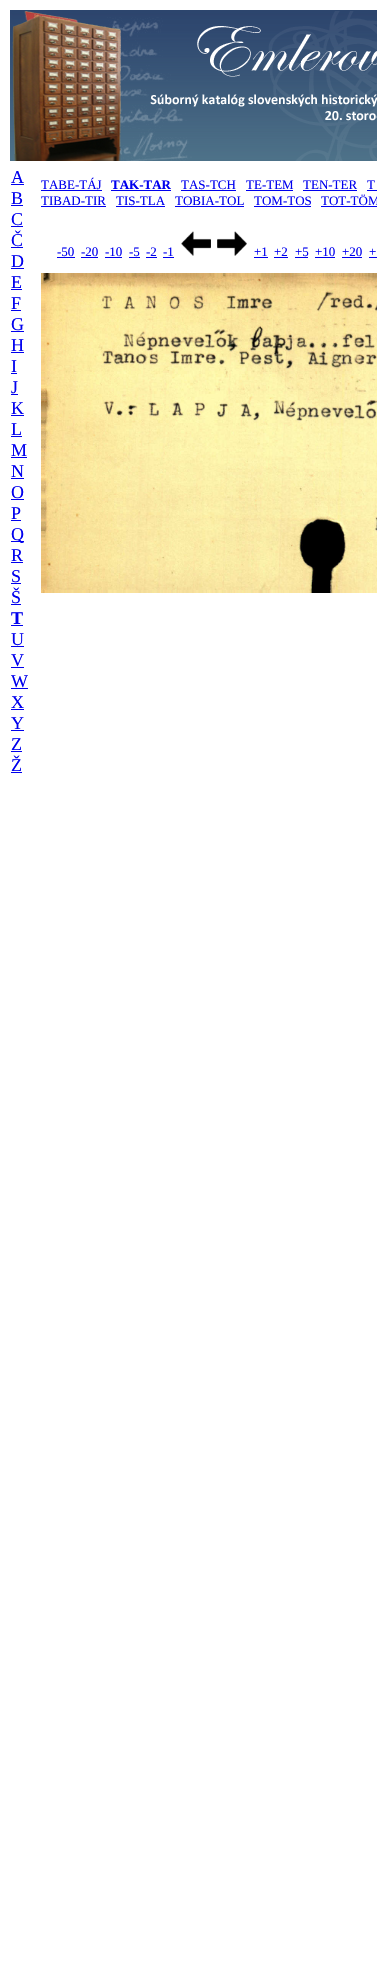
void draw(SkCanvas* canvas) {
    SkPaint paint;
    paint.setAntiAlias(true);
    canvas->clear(0xFFFFFFFF);
    canvas->drawImageRect(SkImages::DeferredFromEncodedData(SkData::MakeFromFileName("img1.png")), SkRect::MakeXYWH(10, 10, 367, 151), SkSamplingOptions());
    canvas->drawImageRect(SkImages::DeferredFromEncodedData(SkData::MakeFromFileName("img2.png")), SkRect::MakeXYWH(12, 11, 365, 150), SkSamplingOptions());
    SkFont font1(fontMgr->matchFamilyStyle("Liberation Serif", SkFontStyle::Normal()), 18);
    font1.setSubpixel(true);
    paint.setColor(0xFF0000EE);
    canvas->drawString("A", 11, 183, font1, paint);
    canvas->drawRect(SkRect::MakeXYWH(11, 184, 13, 1), paint);
    canvas->drawString("B", 11, 204, font1, paint);
    canvas->drawRect(SkRect::MakeXYWH(11, 205, 12, 1), paint);
    canvas->drawString("C", 11, 225, font1, paint);
    canvas->drawRect(SkRect::MakeXYWH(11, 226, 12, 1), paint);
    canvas->drawString("Č", 11, 246, font1, paint);
    canvas->drawRect(SkRect::MakeXYWH(11, 247, 12, 1), paint);
    canvas->drawString("D", 11, 267, font1, paint);
    canvas->drawRect(SkRect::MakeXYWH(11, 268, 13, 1), paint);
    canvas->drawString("E", 11, 288, font1, paint);
    canvas->drawRect(SkRect::MakeXYWH(11, 289, 11, 1), paint);
    canvas->drawString("F", 11, 309, font1, paint);
    canvas->drawRect(SkRect::MakeXYWH(11, 310, 10, 1), paint);
    canvas->drawString("G", 11, 330, font1, paint);
    canvas->drawRect(SkRect::MakeXYWH(11, 331, 13, 1), paint);
    canvas->drawString("H", 11, 351, font1, paint);
    canvas->drawRect(SkRect::MakeXYWH(11, 352, 13, 1), paint);
    canvas->drawString("I", 11, 372, font1, paint);
    canvas->drawRect(SkRect::MakeXYWH(11, 373, 6, 1), paint);
    canvas->drawString("J", 11, 393, font1, paint);
    canvas->drawRect(SkRect::MakeXYWH(11, 394, 7, 1), paint);
    canvas->drawString("K", 11, 414, font1, paint);
    canvas->drawRect(SkRect::MakeXYWH(11, 415, 13, 1), paint);
    canvas->drawString("L", 11, 435, font1, paint);
    canvas->drawRect(SkRect::MakeXYWH(11, 436, 11, 1), paint);
    canvas->drawString("M", 11, 456, font1, paint);
    canvas->drawRect(SkRect::MakeXYWH(11, 457, 16, 1), paint);
    canvas->drawString("N", 11, 477, font1, paint);
    canvas->drawRect(SkRect::MakeXYWH(11, 478, 13, 1), paint);
    canvas->drawString("O", 11, 498, font1, paint);
    canvas->drawRect(SkRect::MakeXYWH(11, 499, 13, 1), paint);
    canvas->drawString("P", 11, 519, font1, paint);
    canvas->drawRect(SkRect::MakeXYWH(11, 520, 10, 1), paint);
    canvas->drawRect(SkRect::MakeXYWH(11, 541, 13, 1), paint);
    canvas->drawString("Q", 11, 540, font1, paint);
    canvas->drawString("R", 11, 561, font1, paint);
    canvas->drawRect(SkRect::MakeXYWH(11, 562, 12, 1), paint);
    canvas->drawString("S", 11, 582, font1, paint);
    canvas->drawRect(SkRect::MakeXYWH(11, 583, 10, 1), paint);
    canvas->drawString("Š", 11, 603, font1, paint);
    canvas->drawRect(SkRect::MakeXYWH(11, 604, 10, 1), paint);
    SkFont font2(fontMgr->matchFamilyStyle("Liberation Serif", SkFontStyle::Bold()), 18);
    font2.setSubpixel(true);
    canvas->drawString("T", 11, 624, font2, paint);
    canvas->drawRect(SkRect::MakeXYWH(11, 625, 12, 1), paint);
    canvas->drawString("U", 11, 645, font1, paint);
    canvas->drawRect(SkRect::MakeXYWH(11, 646, 13, 1), paint);
    canvas->drawString("V", 11, 666, font1, paint);
    canvas->drawRect(SkRect::MakeXYWH(11, 667, 13, 1), paint);
    canvas->drawString("W", 11, 687, font1, paint);
    canvas->drawRect(SkRect::MakeXYWH(11, 688, 17, 1), paint);
    canvas->drawString("X", 11, 708, font1, paint);
    canvas->drawRect(SkRect::MakeXYWH(11, 709, 13, 1), paint);
    canvas->drawString("Y", 11, 729, font1, paint);
    canvas->drawRect(SkRect::MakeXYWH(11, 730, 13, 1), paint);
    canvas->drawString("Z", 11, 750, font1, paint);
    canvas->drawRect(SkRect::MakeXYWH(11, 751, 11, 1), paint);
    canvas->drawString("Ž", 11, 771, font1, paint);
    canvas->drawRect(SkRect::MakeXYWH(11, 772, 11, 1), paint);
    SkFont font3(fontMgr->matchFamilyStyle("Liberation Serif", SkFontStyle::Normal()), 13);
    font3.setSubpixel(true);
    canvas->drawString("TABE-TÁJ", 41, 189, font3, paint);
    canvas->drawRect(SkRect::MakeXYWH(41, 190, 61, 1), paint);
    SkFont font4(fontMgr->matchFamilyStyle("Liberation Serif", SkFontStyle::Bold()), 13);
    font4.setSubpixel(true);
    canvas->drawString("TAK-TAR", 111, 189, font4, paint);
    canvas->drawRect(SkRect::MakeXYWH(111, 190, 60, 1), paint);
    canvas->drawString("TAS-TCH", 181, 189, font3, paint);
    canvas->drawRect(SkRect::MakeXYWH(181, 190, 55, 1), paint);
    canvas->drawString("TE-TEM", 246, 189, font3, paint);
    canvas->drawRect(SkRect::MakeXYWH(246, 190, 47, 1), paint);
    canvas->drawString("TEN-TER", 303, 189, font3, paint);
    canvas->drawRect(SkRect::MakeXYWH(303, 190, 54, 1), paint);
    canvas->drawString("T", 367, 189, font3, paint);
    canvas->drawRect(SkRect::MakeXYWH(367, 190, 10, 1), paint);
    canvas->drawString("TIBAD-TIR", 41, 205, font3, paint);
    canvas->drawRect(SkRect::MakeXYWH(41, 206, 65, 1), paint);
    canvas->drawString("TIS-TLA", 116, 205, font3, paint);
    canvas->drawRect(SkRect::MakeXYWH(116, 206, 49, 1), paint);
    canvas->drawString("TOBIA-TOL", 175, 205, font3, paint);
    canvas->drawRect(SkRect::MakeXYWH(175, 206, 69, 1), paint);
    canvas->drawString("TOM-TOS", 254, 205, font3, paint);
    canvas->drawRect(SkRect::MakeXYWH(254, 206, 57, 1), paint);
    canvas->drawString("TOT-TÖM", 321, 205, font3, paint);
    canvas->drawRect(SkRect::MakeXYWH(321, 206, 56, 1), paint);
    canvas->drawString("-50", 57, 256, font3, paint);
    canvas->drawRect(SkRect::MakeXYWH(57, 257, 18, 1), paint);
    canvas->drawString("-20", 81, 256, font3, paint);
    canvas->drawRect(SkRect::MakeXYWH(81, 257, 17, 1), paint);
    canvas->drawString("-10", 105, 256, font3, paint);
    canvas->drawRect(SkRect::MakeXYWH(105, 257, 17, 1), paint);
    canvas->drawString("-5", 129, 256, font3, paint);
    canvas->drawRect(SkRect::MakeXYWH(129, 257, 11, 1), paint);
    canvas->drawString("-2", 146, 256, font3, paint);
    canvas->drawRect(SkRect::MakeXYWH(146, 257, 11, 1), paint);
    canvas->drawString("-1", 163, 256, font3, paint);
    canvas->drawRect(SkRect::MakeXYWH(163, 257, 11, 1), paint);
    canvas->drawImageRect(SkImages::DeferredFromEncodedData(SkData::MakeFromFileName("img3.png")), SkRect::MakeXYWH(181, 231, 30, 25), SkSamplingOptions());
    canvas->drawImageRect(SkImages::DeferredFromEncodedData(SkData::MakeFromFileName("img4.png")), SkRect::MakeXYWH(217, 231, 30, 25), SkSamplingOptions());
    canvas->drawString("+1", 254, 256, font3, paint);
    canvas->drawRect(SkRect::MakeXYWH(254, 257, 14, 1), paint);
    canvas->drawString("+2", 274, 256, font3, paint);
    canvas->drawRect(SkRect::MakeXYWH(274, 257, 14, 1), paint);
    canvas->drawString("+5", 295, 256, font3, paint);
    canvas->drawRect(SkRect::MakeXYWH(295, 257, 13, 1), paint);
    canvas->drawString("+10", 315, 256, font3, paint);
    canvas->drawRect(SkRect::MakeXYWH(315, 257, 20, 1), paint);
    canvas->drawString("+20", 342, 256, font3, paint);
    canvas->drawRect(SkRect::MakeXYWH(342, 257, 20, 1), paint);
    canvas->drawString("+", 369, 256, font3, paint);
    canvas->drawRect(SkRect::MakeXYWH(369, 257, 8, 1), paint);
    canvas->drawImageRect(SkImages::DeferredFromEncodedData(SkData::MakeFromFileName("img5.png")), SkRect::MakeXYWH(41, 273, 336, 320), SkSamplingOptions());
}
